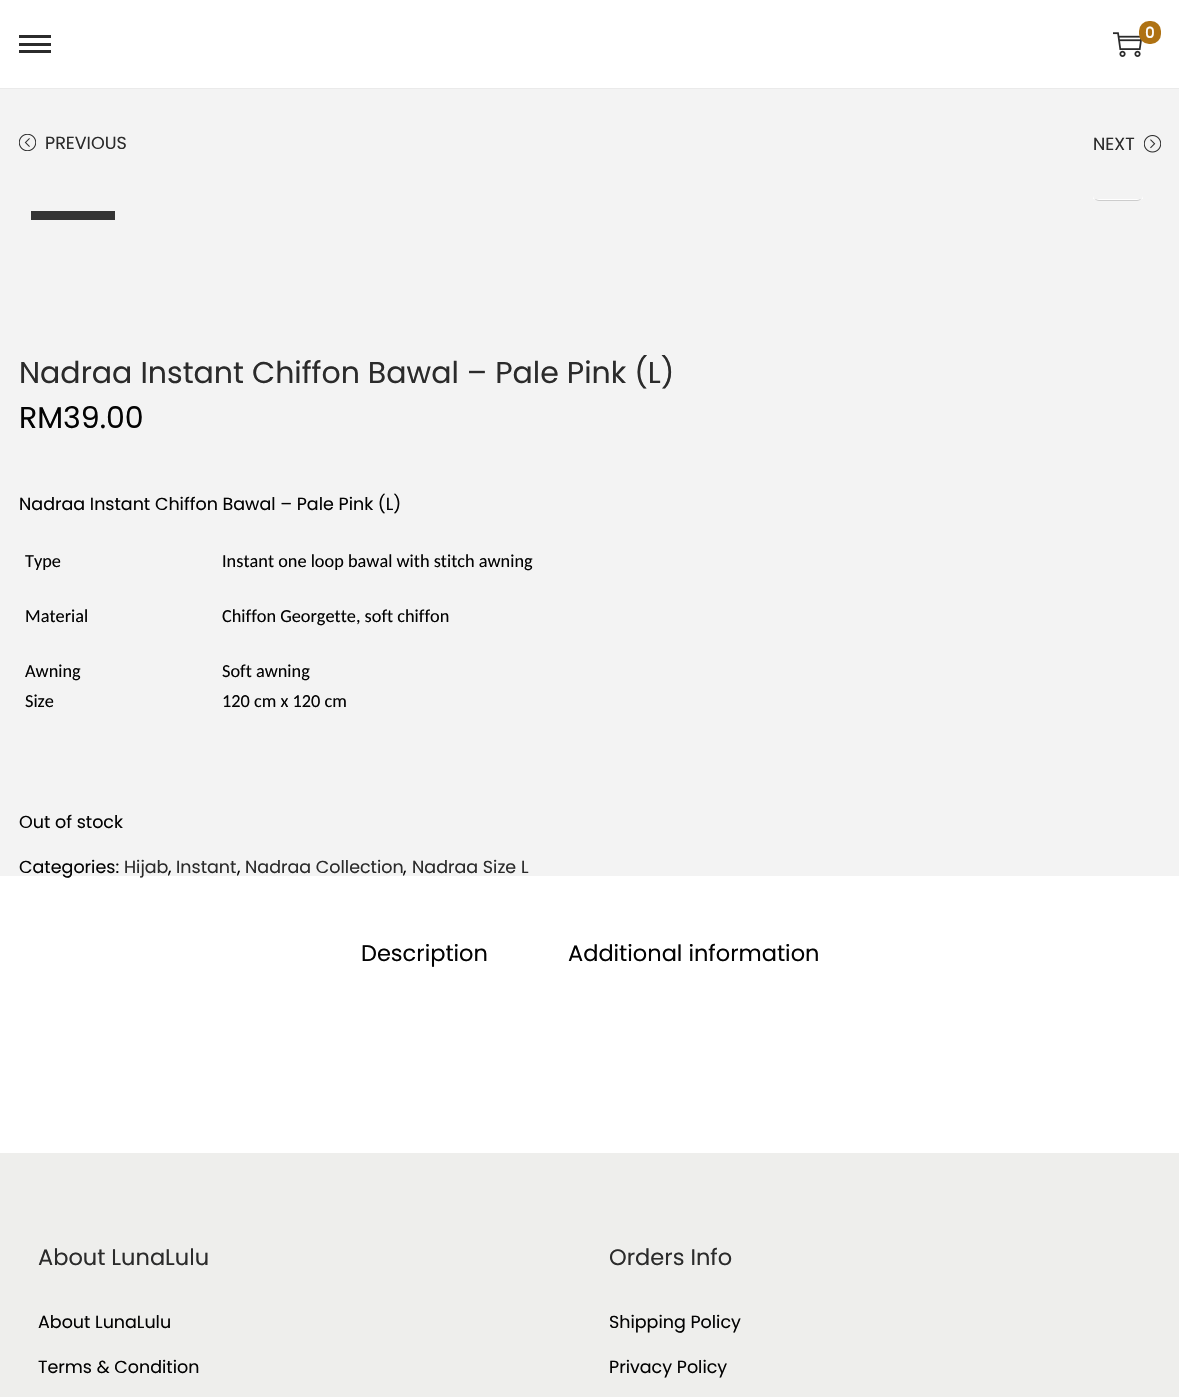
void draw(SkCanvas* canvas) {
    SkPaint paint;
    paint.setAntiAlias(true);
    canvas->clear(0xFFFFFFFF);
    paint.setColor(0xFFEAEAEA);
    canvas->drawRect(SkRect::MakeXYWH(0, 88, 1179, 1), paint);
    canvas->drawImageRect(SkImages::DeferredFromEncodedData(SkData::MakeFromFileName("img1.png")), SkRect::MakeXYWH(1113, 32, 29, 25), SkSamplingOptions());
    paint.setColor(0xFFAF7213);
    canvas->drawRoundRect(SkRect::MakeXYWH(1139, 21, 22, 23), 10, 10, paint);
    SkFont font1(fontMgr->matchFamilyStyle("Poppins", SkFontStyle::Bold()), 15);
    font1.setSubpixel(true);
    paint.setColor(0xFFFFFFFF);
    canvas->drawString("0", 1145, 38, font1, paint);
    paint.setColor(0xFF2B2B2B);
    canvas->drawRect(SkRect::MakeXYWH(19, 43, 32, 3), paint);
    canvas->drawRect(SkRect::MakeXYWH(19, 35, 32, 3), paint);
    canvas->drawRect(SkRect::MakeXYWH(19, 50, 32, 3), paint);
    paint.setColor(0xFFF3F3F3);
    canvas->drawRect(SkRect::MakeXYWH(0, 89, 1179, 787), paint);
    canvas->drawImageRect(SkImages::DeferredFromEncodedData(SkData::MakeFromFileName("img2.png")), SkRect::MakeXYWH(19, 134, 17, 17), SkSamplingOptions());
    SkFont font2(fontMgr->matchFamilyStyle("Poppins", SkFontStyle::Normal()), 17.5f);
    font2.setSubpixel(true);
    paint.setColor(0xFF2B2B2B);
    canvas->drawString("PREVIOUS", 45, 149, font2, paint);
    canvas->drawString("NEXT", 1093, 150, font2, paint);
    canvas->drawImageRect(SkImages::DeferredFromEncodedData(SkData::MakeFromFileName("img3.png")), SkRect::MakeXYWH(1144, 135, 17, 18), SkSamplingOptions());
    paint.setColor(0xFFFFFFFF);
    canvas->drawPath(SkPathBuilder().moveTo(1093, 199).lineTo(1143, 199).lineTo(1143, 195).cubicTo(1143, 198.5f, 1140.5f, 201, 1137, 201).lineTo(1099, 201).cubicTo(1095.5f, 201, 1093, 198.5f, 1093, 195).close().detach(), paint);
    canvas->save();
    canvas->clipRect(SkRect::MakeXYWH(19, 199, 1142, 21));
    paint.setStyle(SkPaint::kStroke_Style);
    paint.setStrokeWidth(1);
    paint.setColor(0xFFCCCCCC);
    canvas->drawRoundRect(SkRect::MakeXYWH(1093.5f, 151.5f, 49, 49), 5.5f, 5.5f, paint);
    canvas->restore();
    paint.setStyle(SkPaint::kFill_Style);
    paint.setColor(0xFF343434);
    canvas->drawRect(SkRect::MakeXYWH(31, 211, 84, 9), paint);
    SkFont font3(fontMgr->matchFamilyStyle("Poppins", SkFontStyle::Normal()), 30);
    font3.setSubpixel(true);
    paint.setColor(0xFF2B2B2B);
    canvas->drawString("Nadraa Instant Chiffon Bawal – Pale Pink (L)", 19, 383, font3, paint);
    paint.setColor(0xFF030303);
    canvas->drawString("RM39.00", 19, 428, font3, paint);
    canvas->drawString("Nadraa Instant Chiffon Bawal – Pale Pink (L)", 19, 510, font2, paint);
    SkFont font4(fontMgr->matchFamilyStyle("Carlito", SkFontStyle::Normal()), 18.3f);
    font4.setSubpixel(true);
    canvas->drawString("Type", 25, 567, font4, paint);
    canvas->drawString("Instant one loop bawal with stitch awning", 222, 567, font4, paint);
    canvas->drawString("Material", 25, 622, font4, paint);
    canvas->drawString("Chiffon Georgette, soft chiffon", 222, 622, font4, paint);
    canvas->drawString("Awning", 25, 677, font4, paint);
    canvas->drawString("Size", 25, 707, font4, paint);
    canvas->drawString("Soft awning", 222, 677, font4, paint);
    canvas->drawString("120 cm x 120 cm", 222, 707, font4, paint);
    canvas->drawString("Out of stock", 19, 828, font2, paint);
    canvas->drawString("Categories:", 19, 873, font2, paint);
    paint.setColor(0xFF2B2B2B);
    canvas->drawString("Hijab", 124, 873, font2, paint);
    paint.setColor(0xFF030303);
    canvas->drawString(",", 168, 873, font2, paint);
    paint.setColor(0xFF2B2B2B);
    canvas->drawString("Instant", 176, 873, font2, paint);
    paint.setColor(0xFF030303);
    canvas->drawString(",", 237, 873, font2, paint);
    paint.setColor(0xFF2B2B2B);
    canvas->drawString("Nadraa Collection", 245, 873, font2, paint);
    paint.setColor(0xFF030303);
    canvas->drawString(",", 403, 873, font2, paint);
    paint.setColor(0xFF2B2B2B);
    canvas->drawString("Nadraa Size L", 412, 873, font2, paint);
    SkFont font5(fontMgr->matchFamilyStyle("Poppins", SkFontStyle::Normal()), 22.5f);
    font5.setSubpixel(true);
    paint.setColor(0xFF030303);
    canvas->drawString("Description", 361, 961, font5, paint);
    canvas->drawString("Additional information", 568, 961, font5, paint);
    paint.setColor(0xFFEEEEEC);
    canvas->drawRect(SkRect::MakeXYWH(0, 1153, 1179, 244), paint);
    paint.setColor(0xFF2B2B2B);
    canvas->drawString("About LunaLulu", 38, 1265, font5, paint);
    paint.setColor(0xFF030303);
    canvas->drawString("About LunaLulu", 38, 1328, font2, paint);
    canvas->drawString("Terms & Condition", 38, 1373, font2, paint);
    paint.setColor(0xFF2B2B2B);
    canvas->drawString("Orders Info", 609, 1265, font5, paint);
    paint.setColor(0xFF030303);
    canvas->drawString("Shipping Policy", 609, 1328, font2, paint);
    canvas->drawString("Privacy Policy", 609, 1373, font2, paint);
}
